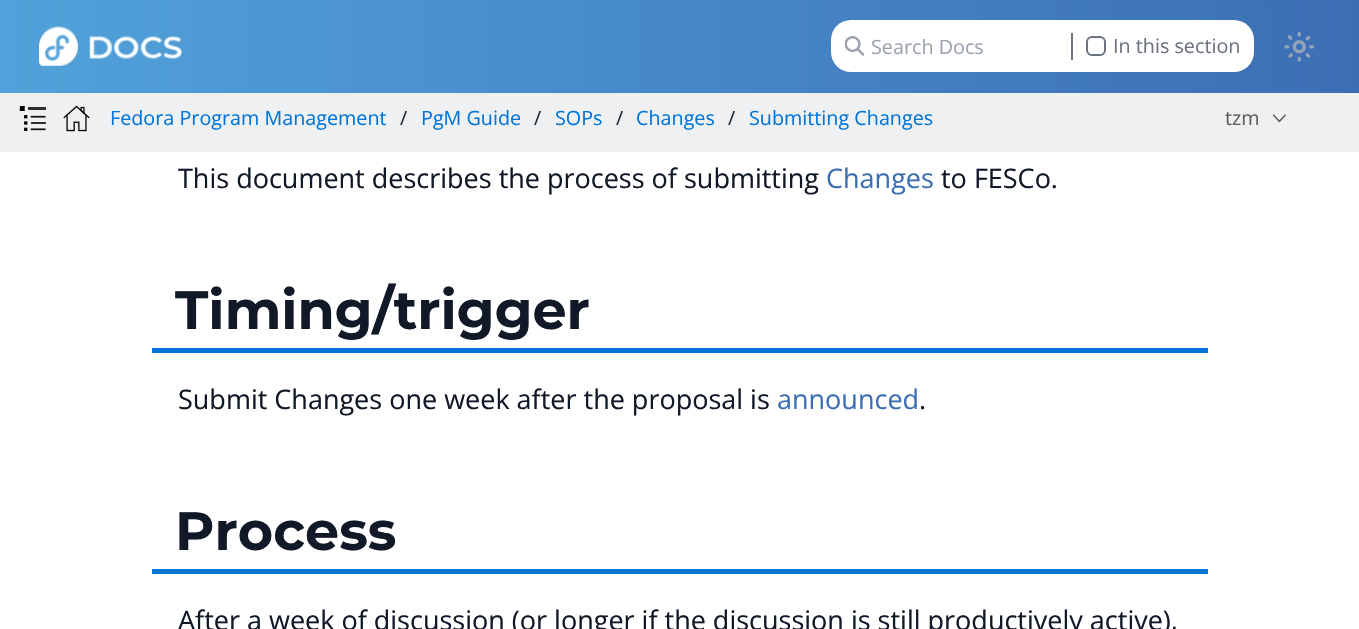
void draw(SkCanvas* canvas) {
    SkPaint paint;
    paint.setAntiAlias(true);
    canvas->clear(0xFFFFFFFF);
    {
        const SkColor colors[] = {0xFF3C6EB4, 0xFF51A2DA};
        const float stops[] = {0, 1};
        const SkPoint ends[] = {{1359, 46}, {0, 47}};
        paint.setShader(SkGradientShader::MakeLinear(ends, colors, stops, 2, SkTileMode::kClamp));
        paint.setAlpha(255);
    }
    canvas->drawRect(SkRect::MakeXYWH(0, 0, 1359, 93), paint);
    canvas->drawImageRect(SkImages::DeferredFromEncodedData(SkData::MakeFromFileName("img1.png")), SkRect::MakeXYWH(39, 26, 143, 40), SkSamplingOptions());
    paint.setShader(nullptr);
    paint.setColor(0xFFFFFFFF);
    canvas->drawRoundRect(SkRect::MakeXYWH(831, 20, 423, 52), 20, 20, paint);
    canvas->drawImageRect(SkImages::DeferredFromEncodedData(SkData::MakeFromFileName("img2.png")), SkRect::MakeXYWH(845, 36, 19, 20), SkSamplingOptions());
    SkFont font1(fontMgr->matchFamilyStyle("Open Sans", SkFontStyle::Normal()), 19.75f);
    font1.setSubpixel(true);
    paint.setColor(0xFF9CA3AF);
    canvas->drawString("Search Docs", 871, 54, font1, paint);
    paint.setColor(0xFF6B7280);
    canvas->drawRect(SkRect::MakeXYWH(1071, 33, 2, 27), paint);
    paint.setStyle(SkPaint::kStroke_Style);
    paint.setStrokeWidth(2);
    canvas->drawRoundRect(SkRect::MakeXYWH(1087, 37, 18, 18), 5, 5, paint);
    paint.setStyle(SkPaint::kFill_Style);
    canvas->drawString("In this section", 1113, 53, font1, paint);
    canvas->drawImageRect(SkImages::DeferredFromEncodedData(SkData::MakeFromFileName("img3.png")), SkRect::MakeXYWH(1284, 32, 31, 30), SkSamplingOptions());
    paint.setColor(0xFFEFF0F1);
    canvas->drawRect(SkRect::MakeXYWH(0, 93, 1359, 59), paint);
    canvas->drawImageRect(SkImages::DeferredFromEncodedData(SkData::MakeFromFileName("img4.png")), SkRect::MakeXYWH(19, 106, 27, 25), SkSamplingOptions());
    canvas->drawImageRect(SkImages::DeferredFromEncodedData(SkData::MakeFromFileName("img5.png")), SkRect::MakeXYWH(63, 105, 27, 27), SkSamplingOptions());
    paint.setColor(0xFF0275D8);
    canvas->drawString("Fedora Program Management", 110, 125, font1, paint);
    paint.setColor(0xFF1F2937);
    canvas->drawString("/", 400, 125, font1, paint);
    paint.setColor(0xFF0275D8);
    canvas->drawString("PgM Guide", 421, 125, font1, paint);
    paint.setColor(0xFF1F2937);
    canvas->drawString("/", 534, 125, font1, paint);
    paint.setColor(0xFF0275D8);
    canvas->drawString("SOPs", 555, 125, font1, paint);
    paint.setColor(0xFF1F2937);
    canvas->drawString("/", 616, 125, font1, paint);
    paint.setColor(0xFF0275D8);
    canvas->drawString("Changes", 636, 125, font1, paint);
    paint.setColor(0xFF1F2937);
    canvas->drawString("/", 728, 125, font1, paint);
    paint.setColor(0xFF0275D8);
    canvas->drawString("Submitting Changes", 749, 125, font1, paint);
    canvas->drawImageRect(SkImages::DeferredFromEncodedData(SkData::MakeFromFileName("img6.png")), SkRect::MakeXYWH(1272, 114, 14, 9), SkSamplingOptions());
    paint.setColor(0xFF5D5D5D);
    canvas->drawString("tzm", 1225, 125, font1, paint);
    SkFont font2(fontMgr->matchFamilyStyle("Open Sans", SkFontStyle::Normal()), 27);
    font2.setSubpixel(true);
    paint.setColor(0xFF111827);
    canvas->drawString("This document describes the process of submitting", 178, 188, font2, paint);
    paint.setColor(0xFF3C6EB4);
    canvas->drawString("Changes", 826, 188, font2, paint);
    paint.setColor(0xFF111827);
    canvas->drawString("to FESCo.", 941, 188, font2, paint);
    paint.setColor(0xFF0275D8);
    canvas->drawRect(SkRect::MakeXYWH(152, 348, 1056, 5), paint);
    SkFont font3(fontMgr->matchFamilyStyle("Montserrat", SkFontStyle::Bold()), 54);
    font3.setSubpixel(true);
    paint.setColor(0xFF111827);
    canvas->drawString("Timing/trigger", 175, 329, font3, paint);
    canvas->drawString("Submit Changes one week after the proposal is", 178, 409, font2, paint);
    paint.setColor(0xFF3C6EB4);
    canvas->drawString("announced", 777, 409, font2, paint);
    paint.setColor(0xFF111827);
    canvas->drawString(".", 919, 409, font2, paint);
    paint.setColor(0xFF0275D8);
    canvas->drawRect(SkRect::MakeXYWH(152, 569, 1056, 5), paint);
    paint.setColor(0xFF111827);
    canvas->drawString("Process", 175, 550, font3, paint);
    canvas->drawString("After a week of discussion (or longer if the discussion is still productively active),", 178, 630, font2, paint);
}
